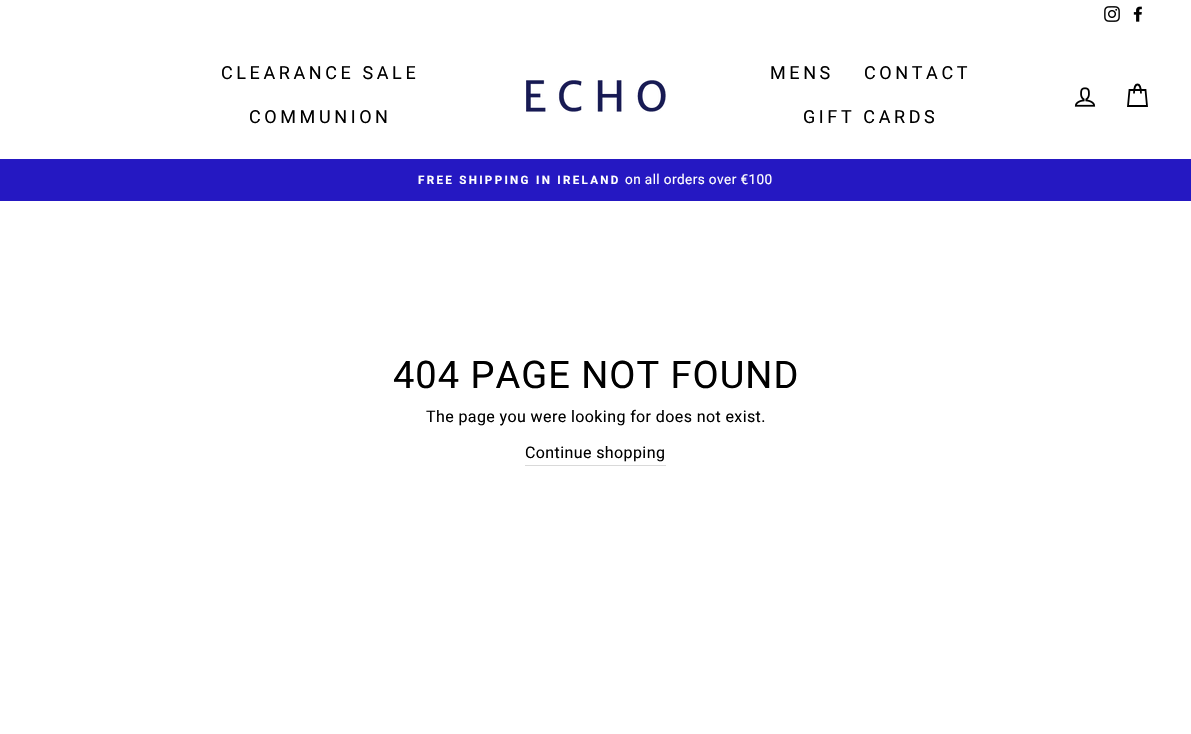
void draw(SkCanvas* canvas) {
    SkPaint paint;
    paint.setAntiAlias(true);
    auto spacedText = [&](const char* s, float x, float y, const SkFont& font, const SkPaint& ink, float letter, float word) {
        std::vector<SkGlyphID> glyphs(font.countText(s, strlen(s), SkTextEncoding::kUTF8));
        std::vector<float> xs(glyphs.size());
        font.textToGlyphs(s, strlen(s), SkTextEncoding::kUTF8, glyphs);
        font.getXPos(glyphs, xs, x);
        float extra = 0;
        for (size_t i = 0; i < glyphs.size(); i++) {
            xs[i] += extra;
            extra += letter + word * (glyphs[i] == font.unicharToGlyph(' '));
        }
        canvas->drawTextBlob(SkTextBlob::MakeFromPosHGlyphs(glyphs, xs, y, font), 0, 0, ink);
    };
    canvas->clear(0xFFFFFFFF);
    canvas->drawImageRect(SkImages::DeferredFromEncodedData(SkData::MakeFromFileName("img1.png")), SkRect::MakeXYWH(1104, 6, 16, 16), SkSamplingOptions());
    canvas->drawImageRect(SkImages::DeferredFromEncodedData(SkData::MakeFromFileName("img2.png")), SkRect::MakeXYWH(1133, 6, 9, 16), SkSamplingOptions());
    SkFont font1(fontMgr->matchFamilyStyle("Roboto", SkFontStyle::Normal()), 18);
    font1.setSubpixel(true);
    paint.setColor(0xFF000000);
    spacedText("CLEARANCE SALE", 221, 79, font1, paint, 3.6f, 0);
    spacedText("COMMUNION", 249, 123, font1, paint, 3.6f, 0);
    canvas->drawImageRect(SkImages::DeferredFromEncodedData(SkData::MakeFromFileName("img3.png")), SkRect::MakeXYWH(526, 80, 140, 32), SkSamplingOptions());
    spacedText("MENS", 770, 79, font1, paint, 3.6f, 0);
    spacedText("CONTACT", 864, 79, font1, paint, 3.6f, 0);
    spacedText("GIFT CARDS", 803, 123, font1, paint, 3.6f, 0);
    canvas->drawImageRect(SkImages::DeferredFromEncodedData(SkData::MakeFromFileName("img4.png")), SkRect::MakeXYWH(1074, 87, 22, 20), SkSamplingOptions());
    paint.setStyle(SkPaint::kStroke_Style);
    paint.setStrokeWidth(1.8f);
    canvas->drawPath(SkPathBuilder().moveTo(1134, 93.5f).cubicTo(1134, 81.5f, 1141, 81.5f, 1141, 93.5f).moveTo(1129.5f, 90).lineTo(1145.5f, 90).lineTo(1147, 106).lineTo(1128, 106).close().detach(), paint);
    paint.setStyle(SkPaint::kFill_Style);
    paint.setColor(0xFF2518C2);
    canvas->drawRect(SkRect::MakeXYWH(0, 159, 1191, 42), paint);
    SkFont font2(fontMgr->matchFamilyStyle("Roboto", SkFontStyle::Bold()), 11.6f);
    font2.setSubpixel(true);
    paint.setColor(0xFFFFFFFF);
    spacedText("FREE SHIPPING IN IRELAND", 418, 184, font2, paint, 2.3f, 0);
    SkFont font3(fontMgr->matchFamilyStyle("Roboto", SkFontStyle::Normal()), 13.6f);
    font3.setSubpixel(true);
    spacedText("on all orders over €100", 625, 184, font3, paint, 0.4f, 0);
    SkFont font4(fontMgr->matchFamilyStyle("Roboto", SkFontStyle::Normal()), 38);
    font4.setSubpixel(true);
    paint.setColor(0xFF000000);
    spacedText("404 PAGE NOT FOUND", 393, 388, font4, paint, 1, 0);
    SkFont font5(fontMgr->matchFamilyStyle("Roboto", SkFontStyle::Normal()), 16);
    font5.setSubpixel(true);
    spacedText("The page you were looking for does not exist.", 426, 422, font5, paint, 0.4f, 0);
    paint.setColor(0xFFD9D9D9);
    canvas->drawRect(SkRect::MakeXYWH(525, 465, 141, 1), paint);
    paint.setColor(0xFF000000);
    spacedText("Continue shopping", 525, 458, font5, paint, 0.4f, 0);
}
